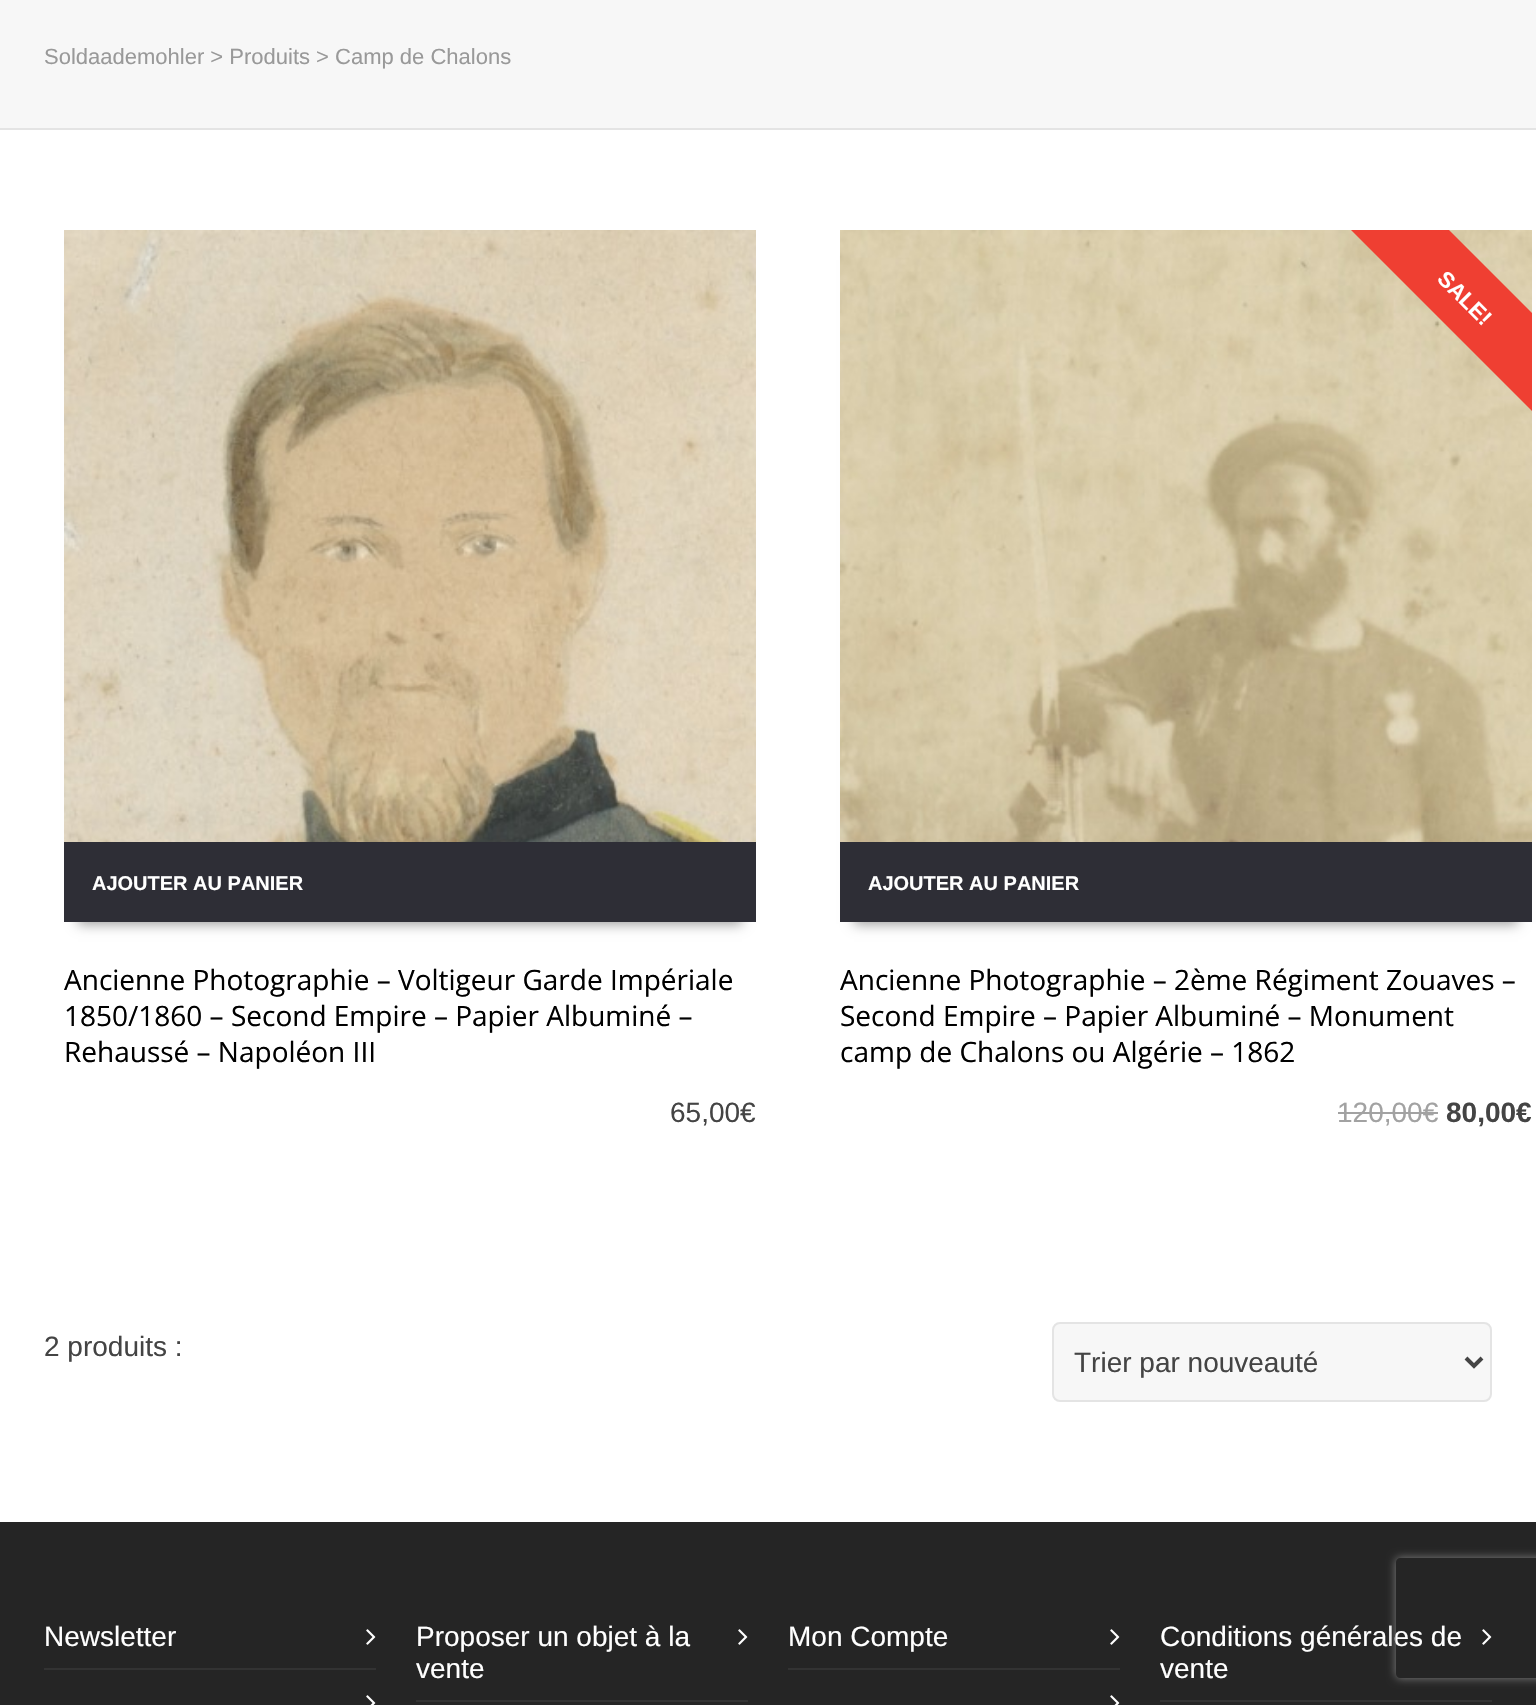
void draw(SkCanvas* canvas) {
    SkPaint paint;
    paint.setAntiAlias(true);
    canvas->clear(0xFF252525);
    paint.setColor(0xFFFFFFFF);
    canvas->drawRect(SkRect::MakeXYWH(0, 130, 1536, 1392), paint);
    paint.setColor(0xFFF7F7F7);
    canvas->drawRect(SkRect::MakeXYWH(0, 0, 1536, 128), paint);
    paint.setColor(0xFFE4E4E4);
    canvas->drawRect(SkRect::MakeXYWH(0, 128, 1536, 2), paint);
    SkFont font1(fontMgr->matchFamilyStyle("Liberation Sans", SkFontStyle::Normal()), 22);
    font1.setSubpixel(true);
    paint.setColor(0xFF999999);
    canvas->drawString("Soldaademohler > Produits > Camp de Chalons", 44, 64, font1, paint);
    paint.setMaskFilter(SkMaskFilter::MakeBlur(kNormal_SkBlurStyle, 6));
    canvas->drawRect(SkRect::MakeXYWH(78, 260, 664, 664), paint);
    paint.setMaskFilter(nullptr);
    canvas->drawImageRect(SkImages::DeferredFromEncodedData(SkData::MakeFromFileName("img1.png")), SkRect::MakeXYWH(64, 230, 692, 612), SkSamplingOptions());
    paint.setColor(0xFF2E2E36);
    canvas->drawRect(SkRect::MakeXYWH(64, 842, 692, 80), paint);
    SkFont font2(fontMgr->matchFamilyStyle("Liberation Sans", SkFontStyle::Bold()), 20);
    font2.setSubpixel(true);
    paint.setColor(0xFFFFFFFF);
    canvas->drawString("AJOUTER AU PANIER", 92, 890, font2, paint);
    SkFont font3(fontMgr->matchFamilyStyle("Open Sans", SkFontStyle::Normal()), 28);
    font3.setSubpixel(true);
    paint.setColor(0xFF000000);
    canvas->drawString("Ancienne Photographie – Voltigeur Garde Impériale", 64, 990, font3, paint);
    canvas->drawString("1850/1860 – Second Empire – Papier Albuminé –", 64, 1026, font3, paint);
    canvas->drawString("Rehaussé – Napoléon III", 64, 1062, font3, paint);
    SkFont font4(fontMgr->matchFamilyStyle("Liberation Sans", SkFontStyle::Normal()), 28);
    font4.setSubpixel(true);
    paint.setColor(0xFF444444);
    canvas->drawString("65,00€", 670, 1122, font4, paint);
    paint.setColor(0xFF999999);
    paint.setMaskFilter(SkMaskFilter::MakeBlur(kNormal_SkBlurStyle, 6));
    canvas->drawRect(SkRect::MakeXYWH(854, 260, 664, 664), paint);
    paint.setMaskFilter(nullptr);
    canvas->drawImageRect(SkImages::DeferredFromEncodedData(SkData::MakeFromFileName("img2.png")), SkRect::MakeXYWH(840, 230, 692, 612), SkSamplingOptions());
    canvas->save();
    canvas->clipRect(SkRect::MakeXYWH(840, 230, 692, 692));
    paint.setColor(0xFFEF3F32);
    canvas->drawPath(SkPathBuilder().moveTo(1400, 181).lineTo(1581, 362).lineTo(1532, 411).lineTo(1351, 230).close().detach(), paint);
    canvas->restore();
    SkFont font5(fontMgr->matchFamilyStyle("Liberation Sans", SkFontStyle::Bold()), 22);
    font5.setSubpixel(true);
    paint.setColor(0xFFFFFFFF);
    canvas->save();
    canvas->rotate(45, 1436, 280);
    canvas->drawString("SALE!", 1436, 280, font5, paint);
    canvas->restore();
    paint.setColor(0xFF2E2E36);
    canvas->drawRect(SkRect::MakeXYWH(840, 842, 692, 80), paint);
    paint.setColor(0xFFFFFFFF);
    canvas->drawString("AJOUTER AU PANIER", 868, 890, font2, paint);
    paint.setColor(0xFF000000);
    canvas->drawString("Ancienne Photographie – 2ème Régiment Zouaves –", 840, 990, font3, paint);
    canvas->drawString("Second Empire – Papier Albuminé – Monument", 840, 1026, font3, paint);
    canvas->drawString("camp de Chalons ou Algérie – 1862", 840, 1062, font3, paint);
    paint.setColor(0xFFA2A2A2);
    canvas->drawString("120,00€", 1337, 1122, font4, paint);
    canvas->drawRect(SkRect::MakeXYWH(1338, 1112, 100, 2), paint);
    SkFont font6(fontMgr->matchFamilyStyle("Liberation Sans", SkFontStyle::Bold()), 28);
    font6.setSubpixel(true);
    paint.setColor(0xFF444444);
    canvas->drawString("80,00€", 1446, 1122, font6, paint);
    canvas->drawString("2 produits :", 44, 1356, font4, paint);
    paint.setColor(0xFFF7F7F7);
    canvas->drawRoundRect(SkRect::MakeXYWH(1053, 1323, 438, 78), 7, 7, paint);
    paint.setStyle(SkPaint::kStroke_Style);
    paint.setStrokeWidth(2);
    paint.setColor(0xFFE4E4E4);
    canvas->drawRoundRect(SkRect::MakeXYWH(1053, 1323, 438, 78), 7, 7, paint);
    paint.setStrokeWidth(4);
    paint.setColor(0xFF444444);
    canvas->drawPath(SkPathBuilder().moveTo(1466, 1358).lineTo(1474, 1366).lineTo(1482, 1358).detach(), paint);
    paint.setStyle(SkPaint::kFill_Style);
    canvas->drawString("Trier par nouveauté", 1074, 1372, font4, paint);
    paint.setColor(0xFFFFFFFF);
    canvas->drawString("Newsletter", 44, 1646, font4, paint);
    canvas->drawImageRect(SkImages::DeferredFromEncodedData(SkData::MakeFromFileName("img3.png")), SkRect::MakeXYWH(366, 1629, 10, 16), SkSamplingOptions());
    paint.setColor(0xFF333333);
    canvas->drawRect(SkRect::MakeXYWH(44, 1668, 332, 2), paint);
    canvas->drawImageRect(SkImages::DeferredFromEncodedData(SkData::MakeFromFileName("img4.png")), SkRect::MakeXYWH(366, 1695, 10, 10), SkSamplingOptions());
    paint.setColor(0xFFFFFFFF);
    canvas->drawString("Proposer un objet à la", 416, 1646, font4, paint);
    canvas->drawImageRect(SkImages::DeferredFromEncodedData(SkData::MakeFromFileName("img3.png")), SkRect::MakeXYWH(738, 1629, 10, 16), SkSamplingOptions());
    canvas->drawString("vente", 416, 1678, font4, paint);
    paint.setColor(0xFF333333);
    canvas->drawRect(SkRect::MakeXYWH(416, 1700, 332, 2), paint);
    paint.setColor(0xFFFFFFFF);
    canvas->drawString("Mon Compte", 788, 1646, font4, paint);
    canvas->drawImageRect(SkImages::DeferredFromEncodedData(SkData::MakeFromFileName("img3.png")), SkRect::MakeXYWH(1110, 1629, 10, 16), SkSamplingOptions());
    paint.setColor(0xFF333333);
    canvas->drawRect(SkRect::MakeXYWH(788, 1668, 332, 2), paint);
    canvas->drawImageRect(SkImages::DeferredFromEncodedData(SkData::MakeFromFileName("img4.png")), SkRect::MakeXYWH(1110, 1695, 10, 10), SkSamplingOptions());
    paint.setColor(0xFFFFFFFF);
    canvas->drawString("Conditions générales de", 1160, 1646, font4, paint);
    canvas->drawImageRect(SkImages::DeferredFromEncodedData(SkData::MakeFromFileName("img3.png")), SkRect::MakeXYWH(1482, 1629, 10, 16), SkSamplingOptions());
    canvas->drawString("vente", 1160, 1678, font4, paint);
    paint.setColor(0xFF333333);
    canvas->drawRect(SkRect::MakeXYWH(1160, 1700, 332, 2), paint);
    canvas->save();
    canvas->clipPath(SkPathBuilder(SkPathFillType::kEvenOdd).moveTo(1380, 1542).lineTo(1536, 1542).lineTo(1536, 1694).lineTo(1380, 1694).close().moveTo(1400, 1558).lineTo(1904, 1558).cubicTo(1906, 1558, 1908, 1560, 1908, 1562).lineTo(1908, 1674).cubicTo(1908, 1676, 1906, 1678, 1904, 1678).lineTo(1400, 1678).cubicTo(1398, 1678, 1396, 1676, 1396, 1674).lineTo(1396, 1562).cubicTo(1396, 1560, 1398, 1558, 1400, 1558).close().detach(), true);
    paint.setColor(0xFF808080);
    paint.setMaskFilter(SkMaskFilter::MakeBlur(kNormal_SkBlurStyle, 5));
    canvas->drawRoundRect(SkRect::MakeXYWH(1396, 1558, 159, 120), 4, 4, paint);
    paint.setMaskFilter(nullptr);
    canvas->restore();
}
